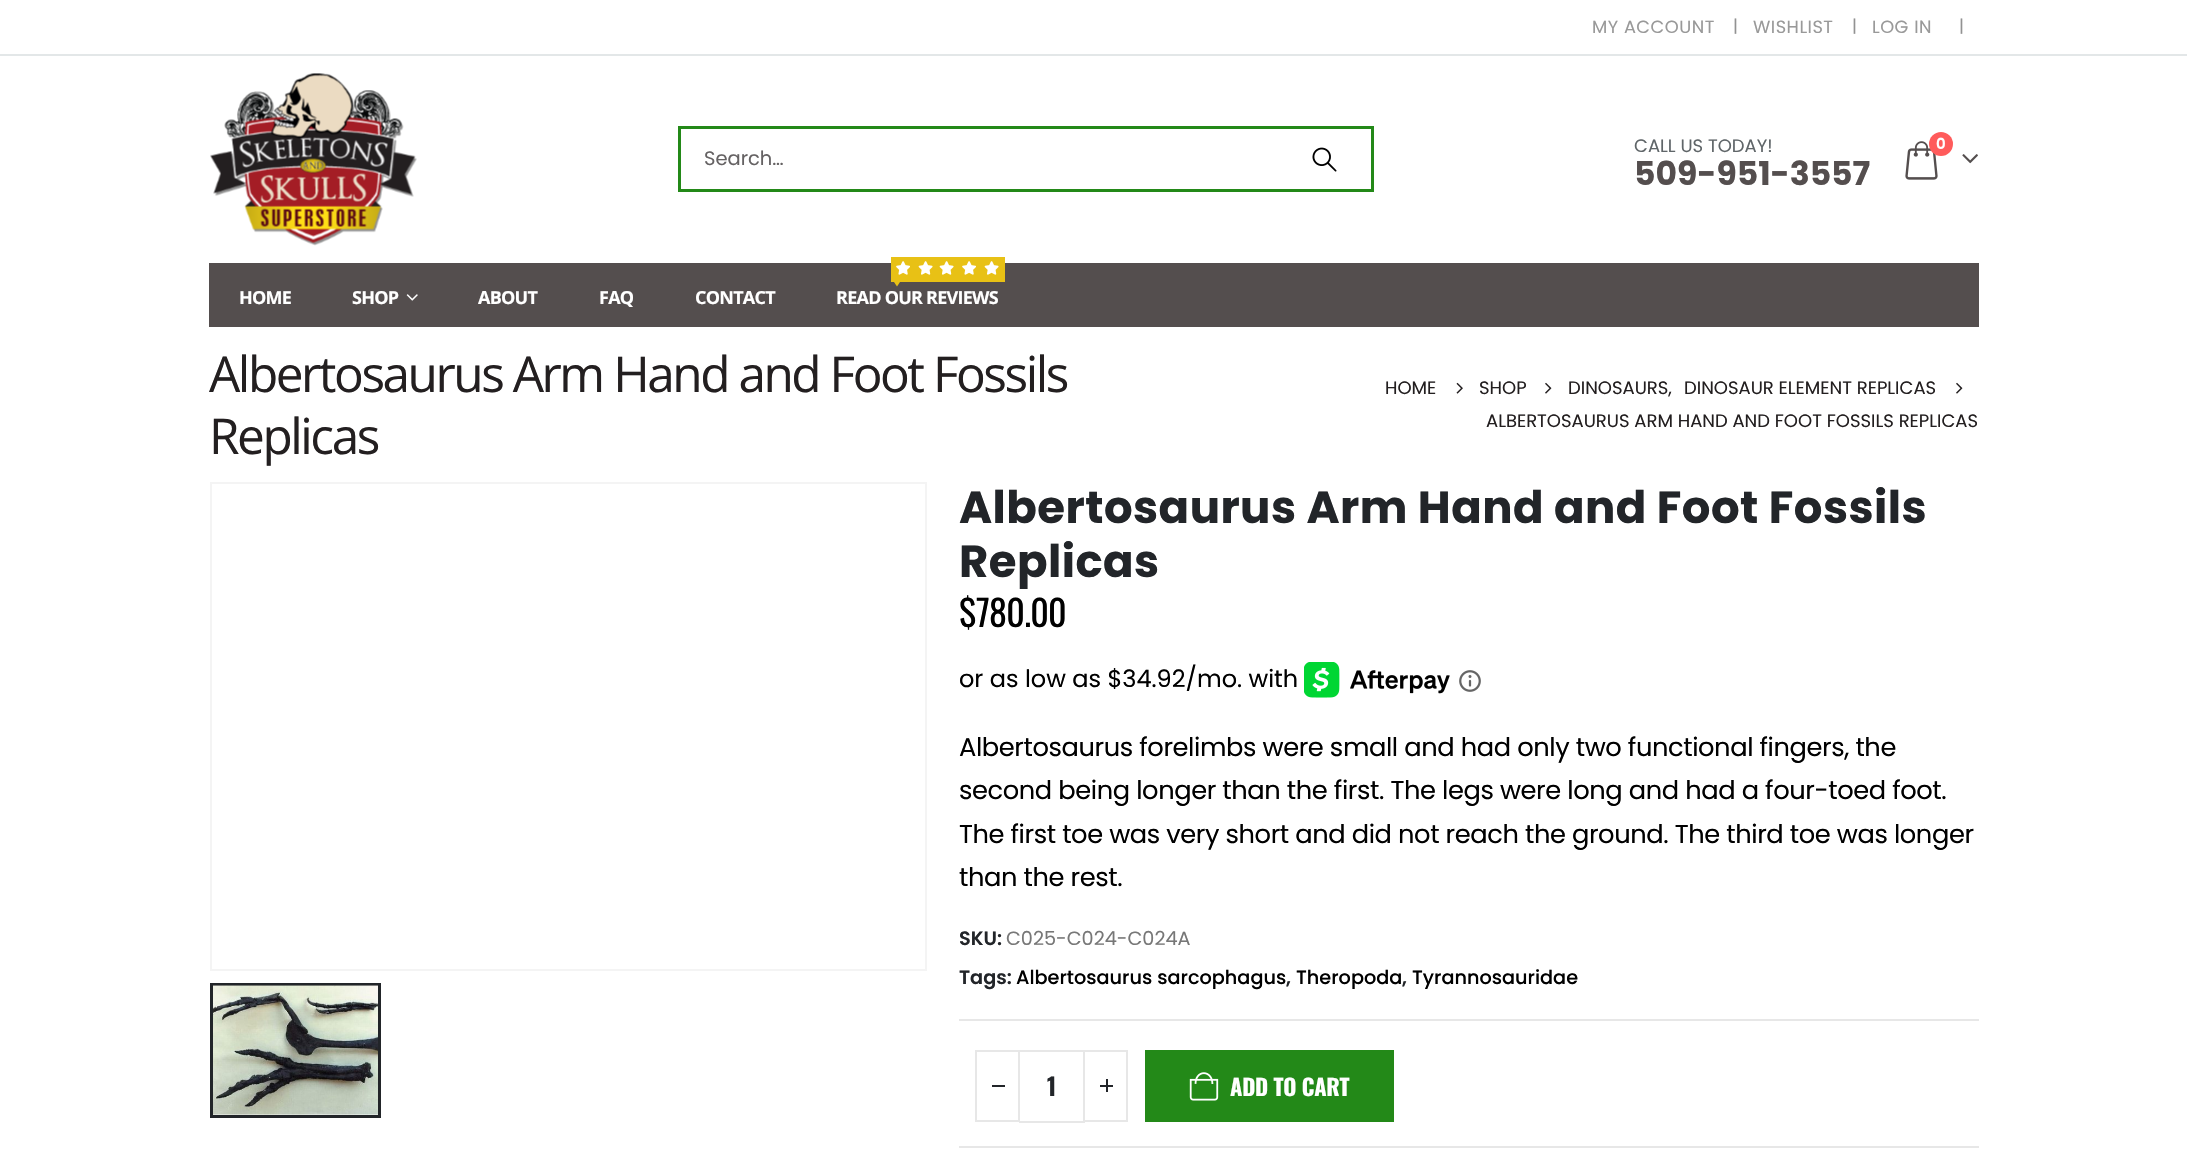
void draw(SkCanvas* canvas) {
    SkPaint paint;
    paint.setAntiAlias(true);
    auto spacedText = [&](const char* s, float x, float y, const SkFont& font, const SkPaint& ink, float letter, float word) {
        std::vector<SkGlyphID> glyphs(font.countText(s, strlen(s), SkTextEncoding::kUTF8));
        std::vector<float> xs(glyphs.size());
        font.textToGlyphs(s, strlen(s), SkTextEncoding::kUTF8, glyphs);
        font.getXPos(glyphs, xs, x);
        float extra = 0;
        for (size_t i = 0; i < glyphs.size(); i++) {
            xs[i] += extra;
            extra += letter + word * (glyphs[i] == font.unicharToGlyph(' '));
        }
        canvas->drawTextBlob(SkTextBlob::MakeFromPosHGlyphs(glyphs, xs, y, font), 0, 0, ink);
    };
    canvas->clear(0xFFFFFFFF);
    paint.setColor(0xFFE3E7E8);
    canvas->drawRect(SkRect::MakeXYWH(0, 54, 2187, 2), paint);
    SkFont font1(fontMgr->matchFamilyStyle("Poppins", SkFontStyle::Normal()), 17.75f);
    font1.setSubpixel(true);
    paint.setColor(0xFF999999);
    spacedText("MY ACCOUNT", 1592, 33, font1, paint, 0.5f, 0);
    SkFont font2(fontMgr->matchFamilyStyle("Poppins", SkFontStyle::Normal()), 17);
    font2.setSubpixel(true);
    paint.setColor(0xFF929292);
    canvas->drawString("|", 1733, 32, font2, paint);
    paint.setColor(0xFF999999);
    spacedText("WISHLIST", 1753, 33, font1, paint, 0.5f, 0);
    paint.setColor(0xFF929292);
    canvas->drawString("|", 1852, 32, font2, paint);
    paint.setColor(0xFF999999);
    spacedText("LOG IN", 1872, 33, font1, paint, 0.5f, 0);
    paint.setColor(0xFF929292);
    canvas->drawString("|", 1959, 32, font2, paint);
    canvas->drawImageRect(SkImages::DeferredFromEncodedData(SkData::MakeFromFileName("img1.png")), SkRect::MakeXYWH(210, 73, 207, 173), SkSamplingOptions());
    paint.setStyle(SkPaint::kStroke_Style);
    paint.setStrokeWidth(3);
    paint.setColor(0xFF238918);
    canvas->drawRect(SkRect::MakeXYWH(679.5f, 127.5f, 693, 63), paint);
    SkFont font3(fontMgr->matchFamilyStyle("Poppins", SkFontStyle::Normal()), 19.5f);
    font3.setSubpixel(true);
    paint.setStyle(SkPaint::kFill_Style);
    paint.setColor(0xFF656263);
    canvas->drawString("Search…", 704, 165, font3, paint);
    canvas->drawImageRect(SkImages::DeferredFromEncodedData(SkData::MakeFromFileName("img2.png")), SkRect::MakeXYWH(1312, 147, 25, 25), SkSamplingOptions());
    SkFont font4(fontMgr->matchFamilyStyle("Poppins", SkFontStyle::Normal()), 18);
    font4.setSubpixel(true);
    paint.setColor(0xFF606669);
    canvas->drawString("CALL US TODAY!", 1634, 152, font4, paint);
    SkFont font5(fontMgr->matchFamilyStyle("Poppins", SkFontStyle::Bold()), 33);
    font5.setSubpixel(true);
    paint.setColor(0xFF544E4E);
    canvas->drawString("509-951-3557", 1634, 185, font5, paint);
    canvas->drawImageRect(SkImages::DeferredFromEncodedData(SkData::MakeFromFileName("img3.png")), SkRect::MakeXYWH(1905, 141, 33, 39), SkSamplingOptions());
    paint.setColor(0xFFFF5B5B);
    canvas->drawCircle(1941, 144, 12, paint);
    SkFont font6(fontMgr->matchFamilyStyle("Poppins", SkFontStyle(600, SkFontStyle::kNormal_Width, SkFontStyle::kUpright_Slant)), 15);
    font6.setSubpixel(true);
    paint.setColor(0xFFFFFFFF);
    canvas->drawString("0", 1936, 149, font6, paint);
    canvas->drawImageRect(SkImages::DeferredFromEncodedData(SkData::MakeFromFileName("img4.png")), SkRect::MakeXYWH(1962, 154, 16, 10), SkSamplingOptions());
    paint.setColor(0xFF544E4E);
    canvas->drawRect(SkRect::MakeXYWH(209, 263, 1770, 64), paint);
    SkFont font7(fontMgr->matchFamilyStyle("Open Sans", SkFontStyle::Bold()), 18);
    font7.setSubpixel(true);
    paint.setColor(0xFFFFFFFF);
    spacedText("HOME", 239, 304, font7, paint, -0.75f, 0);
    spacedText("SHOP", 352, 304, font7, paint, -0.75f, 0);
    canvas->drawImageRect(SkImages::DeferredFromEncodedData(SkData::MakeFromFileName("img5.png")), SkRect::MakeXYWH(406, 294, 12, 7), SkSamplingOptions());
    spacedText("ABOUT", 478, 304, font7, paint, -0.75f, 0);
    spacedText("FAQ", 599, 304, font7, paint, -0.75f, 0);
    spacedText("CONTACT", 695, 304, font7, paint, -0.75f, 0);
    paint.setColor(0xFFE8C115);
    canvas->drawRect(SkRect::MakeXYWH(891, 257, 114, 25), paint);
    canvas->drawImageRect(SkImages::DeferredFromEncodedData(SkData::MakeFromFileName("img6.png")), SkRect::MakeXYWH(896, 261, 14, 14), SkSamplingOptions());
    canvas->drawImageRect(SkImages::DeferredFromEncodedData(SkData::MakeFromFileName("img7.png")), SkRect::MakeXYWH(918, 261, 15, 14), SkSamplingOptions());
    canvas->drawImageRect(SkImages::DeferredFromEncodedData(SkData::MakeFromFileName("img7.png")), SkRect::MakeXYWH(939, 261, 15, 14), SkSamplingOptions());
    canvas->drawImageRect(SkImages::DeferredFromEncodedData(SkData::MakeFromFileName("img6.png")), SkRect::MakeXYWH(962, 261, 14, 14), SkSamplingOptions());
    canvas->drawImageRect(SkImages::DeferredFromEncodedData(SkData::MakeFromFileName("img7.png")), SkRect::MakeXYWH(984, 261, 15, 14), SkSamplingOptions());
    canvas->drawPath(SkPathBuilder().moveTo(894, 282).lineTo(900, 282).lineTo(897, 286.5f).close().detach(), paint);
    paint.setColor(0xFFFFFFFF);
    spacedText("READ OUR REVIEWS", 836, 304, font7, paint, -0.75f, 0);
    SkFont font8(fontMgr->matchFamilyStyle("Open Sans", SkFontStyle::Normal()), 49.5f);
    font8.setSubpixel(true);
    paint.setColor(0xFF231F20);
    spacedText("Albertosaurus Arm Hand and Foot Fossils", 209, 392, font8, paint, -2.45f, 0);
    spacedText("Replicas", 209, 454, font8, paint, -2.45f, 0);
    canvas->drawString("HOME", 1385, 394, font4, paint);
    canvas->drawImageRect(SkImages::DeferredFromEncodedData(SkData::MakeFromFileName("img8.png")), SkRect::MakeXYWH(1456, 382, 7, 12), SkSamplingOptions());
    canvas->drawString("SHOP", 1479, 394, font4, paint);
    canvas->drawImageRect(SkImages::DeferredFromEncodedData(SkData::MakeFromFileName("img9.png")), SkRect::MakeXYWH(1545, 382, 7, 12), SkSamplingOptions());
    canvas->drawString("DINOSAURS,", 1568, 394, font4, paint);
    canvas->drawString("DINOSAUR ELEMENT REPLICAS", 1684, 394, font4, paint);
    canvas->drawImageRect(SkImages::DeferredFromEncodedData(SkData::MakeFromFileName("img9.png")), SkRect::MakeXYWH(1956, 382, 7, 12), SkSamplingOptions());
    canvas->drawString("ALBERTOSAURUS ARM HAND AND FOOT FOSSILS REPLICAS", 1486, 427, font4, paint);
    paint.setStyle(SkPaint::kStroke_Style);
    paint.setStrokeWidth(2);
    paint.setColor(0xFFF4F4F4);
    canvas->drawRect(SkRect::MakeXYWH(211, 483, 715, 487), paint);
    paint.setStrokeWidth(3);
    paint.setColor(0xFF222529);
    canvas->drawRect(SkRect::MakeXYWH(211.5f, 984.5f, 168, 132), paint);
    canvas->drawImageRect(SkImages::DeferredFromEncodedData(SkData::MakeFromFileName("img10.png")), SkRect::MakeXYWH(213, 985, 165, 130), SkSamplingOptions());
    SkFont font9(fontMgr->matchFamilyStyle("Poppins", SkFontStyle::Bold()), 45);
    font9.setSubpixel(true);
    paint.setStyle(SkPaint::kFill_Style);
    spacedText("Albertosaurus Arm Hand and Foot Fossils", 959, 523, font9, paint, 0.45f, 0);
    spacedText("Replicas", 959, 577, font9, paint, 0.45f, 0);
    SkFont font10(fontMgr->matchFamilyStyle("Oswald", SkFontStyle::Normal()), 36);
    font10.setSubpixel(true);
    paint.setColor(0xFF000000);
    spacedText("$780.00", 959, 627, font10, paint, -0.75f, 0);
    SkFont font11(fontMgr->matchFamilyStyle("Poppins", SkFontStyle::Normal()), 24);
    font11.setSubpixel(true);
    canvas->drawString("or as low as $34.92/mo. with", 959, 687, font11, paint);
    canvas->drawImageRect(SkImages::DeferredFromEncodedData(SkData::MakeFromFileName("img11.png")), SkRect::MakeXYWH(1304, 662, 146, 36), SkSamplingOptions());
    canvas->drawImageRect(SkImages::DeferredFromEncodedData(SkData::MakeFromFileName("img12.png")), SkRect::MakeXYWH(1459, 670, 22, 22), SkSamplingOptions());
    SkFont font12(fontMgr->matchFamilyStyle("Poppins", SkFontStyle::Normal()), 25.7f);
    font12.setSubpixel(true);
    spacedText("Albertosaurus forelimbs were small and had only two functional fingers, the", 959, 756, font12, paint, -0.4f, 0);
    spacedText("second being longer than the first. The legs were long and had a four-toed foot.", 959, 799, font12, paint, -0.4f, 0);
    spacedText("The first toe was very short and did not reach the ground. The third toe was longer", 959, 843, font12, paint, -0.4f, 0);
    spacedText("than the rest.", 959, 886, font12, paint, -0.4f, 0);
    SkFont font13(fontMgr->matchFamilyStyle("Poppins", SkFontStyle(600, SkFontStyle::kNormal_Width, SkFontStyle::kUpright_Slant)), 19.25f);
    font13.setSubpixel(true);
    paint.setColor(0xFF222529);
    canvas->drawString("SKU:", 959, 945, font13, paint);
    SkFont font14(fontMgr->matchFamilyStyle("Poppins", SkFontStyle::Normal()), 19.25f);
    font14.setSubpixel(true);
    paint.setColor(0xFF777777);
    canvas->drawString("C025-C024-C024A", 1006, 945, font14, paint);
    paint.setColor(0xFF222529);
    canvas->drawString("Tags:", 959, 984, font13, paint);
    SkFont font15(fontMgr->matchFamilyStyle("Poppins", SkFontStyle(500, SkFontStyle::kNormal_Width, SkFontStyle::kUpright_Slant)), 19.25f);
    font15.setSubpixel(true);
    paint.setColor(0xFF000000);
    canvas->drawString("Albertosaurus sarcophagus", 1016, 984, font15, paint);
    paint.setColor(0xFF222529);
    canvas->drawString(",", 1286, 984, font13, paint);
    paint.setColor(0xFF000000);
    canvas->drawString("Theropoda", 1296, 984, font15, paint);
    paint.setColor(0xFF222529);
    canvas->drawString(",", 1402, 984, font13, paint);
    paint.setColor(0xFF000000);
    canvas->drawString("Tyrannosauridae", 1412, 984, font15, paint);
    paint.setColor(0xFFE7E7E7);
    canvas->drawRect(SkRect::MakeXYWH(959, 1019, 1020, 2), paint);
    canvas->drawRect(SkRect::MakeXYWH(959, 1146, 1020, 2), paint);
    canvas->drawRect(SkRect::MakeXYWH(1019, 1050, 66, 2), paint);
    canvas->drawRect(SkRect::MakeXYWH(1019, 1121, 66, 2), paint);
    paint.setStyle(SkPaint::kStroke_Style);
    paint.setStrokeWidth(2);
    canvas->drawRect(SkRect::MakeXYWH(976, 1051, 43, 70), paint);
    paint.setStyle(SkPaint::kFill_Style);
    paint.setColor(0xFF222529);
    canvas->drawRect(SkRect::MakeXYWH(992, 1085, 13, 2), paint);
    SkFont font16(fontMgr->matchFamilyStyle("Oswald", SkFontStyle::Bold()), 24);
    font16.setSubpixel(true);
    canvas->drawString("1", 1047, 1096, font16, paint);
    paint.setStyle(SkPaint::kStroke_Style);
    paint.setColor(0xFFE7E7E7);
    canvas->drawRect(SkRect::MakeXYWH(1084, 1051, 43, 70), paint);
    paint.setStyle(SkPaint::kFill_Style);
    paint.setColor(0xFF222529);
    canvas->drawRect(SkRect::MakeXYWH(1100, 1085, 13, 2), paint);
    canvas->drawRect(SkRect::MakeXYWH(1106, 1079, 2, 13), paint);
    paint.setColor(0xFF238918);
    canvas->drawRect(SkRect::MakeXYWH(1145, 1050, 249, 72), paint);
    canvas->drawImageRect(SkImages::DeferredFromEncodedData(SkData::MakeFromFileName("img13.png")), SkRect::MakeXYWH(1189, 1072, 30, 29), SkSamplingOptions());
    SkFont font17(fontMgr->matchFamilyStyle("Oswald", SkFontStyle::Bold()), 22.5f);
    font17.setSubpixel(true);
    paint.setColor(0xFFFFFFFF);
    spacedText("ADD TO CART", 1230, 1096, font17, paint, -0.25f, 0);
}
